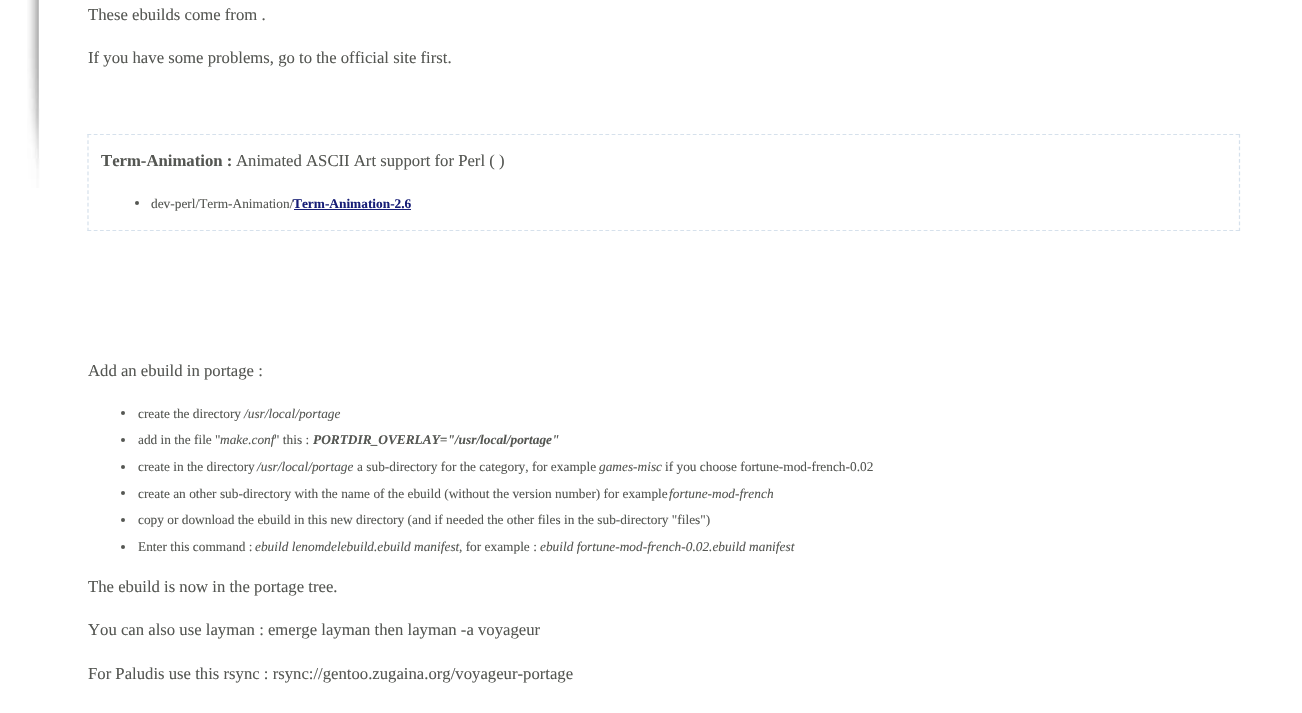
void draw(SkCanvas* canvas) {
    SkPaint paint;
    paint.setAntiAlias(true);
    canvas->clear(0xFFFFFFFF);
    canvas->drawImageRect(SkImages::DeferredFromEncodedData(SkData::MakeFromFileName("img1.png")), SkRect::MakeXYWH(27, 0, 13, 188), SkSamplingOptions());
    SkFont font1(fontMgr->matchFamilyStyle("Liberation Serif", SkFontStyle::Normal()), 16.7f);
    font1.setSubpixel(true);
    paint.setColor(0xFF555753);
    canvas->drawString("These ebuilds come from .", 88, 20, font1, paint);
    canvas->drawString("If you have some problems, go to the official site first.", 88, 63, font1, paint);
    paint.setStyle(SkPaint::kStroke_Style);
    paint.setStrokeWidth(1.2f);
    paint.setColor(0xFFD6E1EC);
    paint.setPathEffect(SkDashPathEffect::Make({{3.75f, 2.49f}}, 0));
    canvas->drawPath(SkPathBuilder().moveTo(87.5f, 134.5f).lineTo(1240, 134.5f).detach(), paint);
    paint.setPathEffect(nullptr);
    paint.setPathEffect(SkDashPathEffect::Make({{3.75f, 2.5f}}, 0));
    canvas->drawPath(SkPathBuilder().moveTo(1239.5f, 134).lineTo(1239.5f, 231).detach(), paint);
    paint.setPathEffect(nullptr);
    paint.setPathEffect(SkDashPathEffect::Make({{3.75f, 2.49f}}, 0));
    canvas->drawPath(SkPathBuilder().moveTo(87.5f, 230.5f).lineTo(1240, 230.5f).detach(), paint);
    paint.setPathEffect(nullptr);
    paint.setPathEffect(SkDashPathEffect::Make({{3.75f, 2.5f}}, 0));
    canvas->drawPath(SkPathBuilder().moveTo(88, 134).lineTo(88, 231).detach(), paint);
    paint.setPathEffect(nullptr);
    SkFont font2(fontMgr->matchFamilyStyle("Liberation Serif", SkFontStyle::Bold()), 16.7f);
    font2.setSubpixel(true);
    paint.setStyle(SkPaint::kFill_Style);
    paint.setColor(0xFF555753);
    canvas->drawString("Term-Animation :", 101, 166, font2, paint);
    canvas->drawString("Animated ASCII Art support for Perl ( )", 236, 166, font1, paint);
    canvas->drawCircle(137, 203, 2, paint);
    SkFont font3(fontMgr->matchFamilyStyle("Liberation Serif", SkFontStyle::Normal()), 13.35f);
    font3.setSubpixel(true);
    canvas->drawString("dev-perl/Term-Animation/", 151, 208, font3, paint);
    SkFont font4(fontMgr->matchFamilyStyle("Liberation Serif", SkFontStyle::Bold()), 13.35f);
    font4.setSubpixel(true);
    paint.setColor(0xFF171E77);
    canvas->drawString("Term-Animation-2.6", 293, 208, font4, paint);
    canvas->drawRect(SkRect::MakeXYWH(294, 209, 117, 1), paint);
    paint.setColor(0xFF555753);
    canvas->drawString("Add an ebuild in portage :", 88, 376, font1, paint);
    canvas->drawCircle(123, 413, 2, paint);
    canvas->drawString("create the directory", 138, 418, font3, paint);
    SkFont font5(fontMgr->matchFamilyStyle("Liberation Serif", SkFontStyle::Italic()), 13.35f);
    font5.setSubpixel(true);
    canvas->drawString("/usr/local/portage", 244, 418, font5, paint);
    canvas->drawCircle(123, 440, 2, paint);
    canvas->drawString("add in the file \"", 138, 444, font3, paint);
    canvas->drawString("make.conf", 220, 444, font5, paint);
    canvas->drawString("\" this :", 274, 444, font3, paint);
    SkFont font6(fontMgr->matchFamilyStyle("Liberation Serif", SkFontStyle::BoldItalic()), 13.35f);
    font6.setSubpixel(true);
    canvas->drawString("PORTDIR_OVERLAY=\"/usr/local/portage\"", 313, 444, font6, paint);
    canvas->drawCircle(123, 467, 2, paint);
    canvas->drawString("create in the directory", 138, 471, font3, paint);
    canvas->drawString("/usr/local/portage", 257, 471, font5, paint);
    canvas->drawString("a sub-directory for the category, for example", 357, 471, font3, paint);
    canvas->drawString("games-misc", 599, 471, font5, paint);
    canvas->drawString("if you choose fortune-mod-french-0.02", 665, 471, font3, paint);
    canvas->drawCircle(123, 493, 2, paint);
    canvas->drawString("create an other sub-directory with the name of the ebuild (without the version number) for example", 138, 498, font3, paint);
    canvas->drawString("fortune-mod-french", 669, 498, font5, paint);
    canvas->drawCircle(123, 520, 2, paint);
    canvas->drawString("copy or download the ebuild in this new directory (and if needed the other files in the sub-directory \"files\")", 138, 524, font3, paint);
    canvas->drawCircle(123, 547, 2, paint);
    canvas->drawString("Enter this command :", 138, 551, font3, paint);
    canvas->drawString("ebuild lenomdelebuild.ebuild manifest", 255, 551, font5, paint);
    canvas->drawString(", for example :", 459, 551, font3, paint);
    canvas->drawString("ebuild fortune-mod-french-0.02.ebuild manifest", 540, 551, font5, paint);
    canvas->drawString("The ebuild is now in the portage tree.", 88, 592, font1, paint);
    canvas->drawString("You can also use layman : emerge layman then layman -a voyageur", 88, 635, font1, paint);
    canvas->drawString("For Paludis use this rsync : rsync://gentoo.zugaina.org/voyageur-portage", 88, 679, font1, paint);
}
